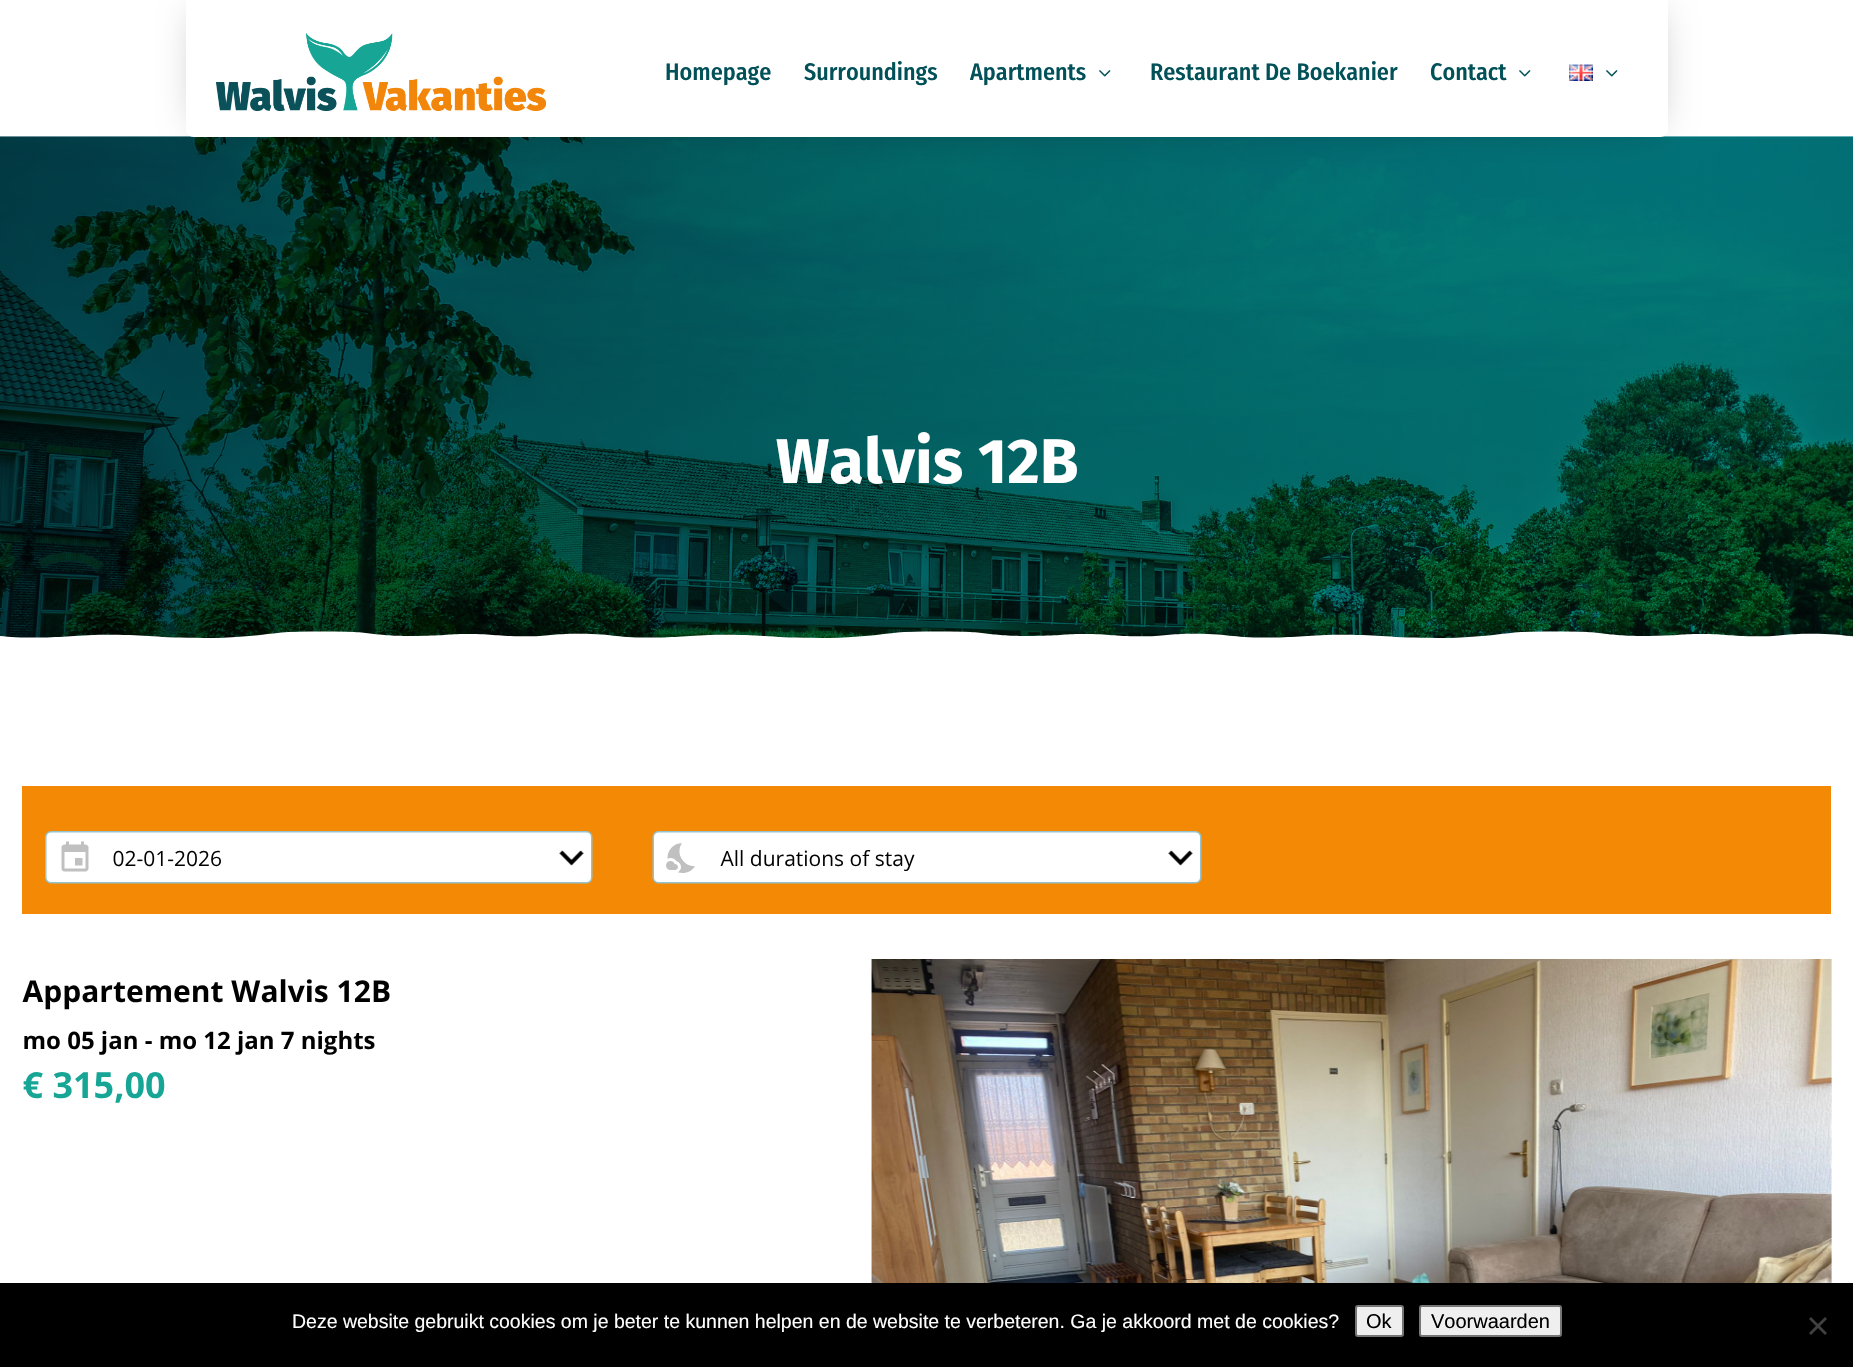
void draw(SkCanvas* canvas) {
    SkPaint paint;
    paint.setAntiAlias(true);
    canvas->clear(0xFFFFFFFF);
    canvas->drawImageRect(SkImages::DeferredFromEncodedData(SkData::MakeFromFileName("img4.png")), SkRect::MakeXYWH(0, 136, 1853, 502), SkSamplingOptions());
    paint.setColor(0x4D000000);
    paint.setMaskFilter(SkMaskFilter::MakeBlur(kNormal_SkBlurStyle, 19.5f));
    canvas->drawRect(SkRect::MakeXYWH(200, 14, 1455, 109), paint);
    paint.setMaskFilter(nullptr);
    paint.setColor(0xFFFFFFFF);
    canvas->drawPath(SkPathBuilder().moveTo(186, 0).lineTo(1668, 0).lineTo(1668, 129).cubicTo(1668, 133.5f, 1664.5f, 137, 1660, 137).lineTo(194, 137).cubicTo(189.5f, 137, 186, 133.5f, 186, 129).close().detach(), paint);
    canvas->drawImageRect(SkImages::DeferredFromEncodedData(SkData::MakeFromFileName("img1.png")), SkRect::MakeXYWH(216, 33, 330, 78), SkSamplingOptions());
    SkFont font1(fontMgr->matchFamilyStyle("Fira Sans Condensed", SkFontStyle(500, SkFontStyle::kNormal_Width, SkFontStyle::kUpright_Slant)), 24);
    font1.setSubpixel(true);
    paint.setColor(0xFF025159);
    canvas->drawString("Homepage", 665, 80, font1, paint);
    canvas->drawString("Surroundings", 804, 80, font1, paint);
    canvas->drawString("Apartments", 970, 80, font1, paint);
    canvas->drawImageRect(SkImages::DeferredFromEncodedData(SkData::MakeFromFileName("img2.png")), SkRect::MakeXYWH(1099, 70, 12, 7), SkSamplingOptions());
    canvas->drawString("Restaurant De Boekanier", 1150, 80, font1, paint);
    canvas->drawString("Contact", 1430, 80, font1, paint);
    canvas->drawImageRect(SkImages::DeferredFromEncodedData(SkData::MakeFromFileName("img2.png")), SkRect::MakeXYWH(1519, 70, 12, 7), SkSamplingOptions());
    canvas->drawImageRect(SkImages::DeferredFromEncodedData(SkData::MakeFromFileName("img3.png")), SkRect::MakeXYWH(1569, 64, 24, 17), SkSamplingOptions());
    canvas->drawImageRect(SkImages::DeferredFromEncodedData(SkData::MakeFromFileName("img2.png")), SkRect::MakeXYWH(1606, 70, 12, 7), SkSamplingOptions());
    SkFont font2(fontMgr->matchFamilyStyle("Fira Sans", SkFontStyle::Bold()), 63);
    font2.setSubpixel(true);
    paint.setColor(0xFFFFFFFF);
    canvas->drawString("Walvis 12B", 776, 483, font2, paint);
    canvas->drawImageRect(SkImages::DeferredFromEncodedData(SkData::MakeFromFileName("img5.png")), SkRect::MakeXYWH(0, 631, 1853, 8), SkSamplingOptions());
    canvas->drawImageRect(SkImages::DeferredFromEncodedData(SkData::MakeFromFileName("img6.png")), SkRect::MakeXYWH(22, 786, 1810, 497), SkSamplingOptions());
    paint.setColor(0xFF000000);
    canvas->drawRect(SkRect::MakeXYWH(0, 1283, 1853, 84), paint);
    SkFont font3(fontMgr->matchFamilyStyle("Liberation Sans", SkFontStyle::Normal()), 19.5f);
    font3.setSubpixel(true);
    paint.setColor(0xFFFFFFFF);
    canvas->drawString("Deze website gebruikt cookies om je beter te kunnen helpen en de website te verbeteren. Ga je akkoord met de cookies?", 292, 1328, font3, paint);
    paint.setColor(0xFFEFEFEF);
    canvas->drawRoundRect(SkRect::MakeXYWH(1356, 1306, 47, 30), 2, 2, paint);
    paint.setStyle(SkPaint::kStroke_Style);
    paint.setStrokeWidth(2);
    paint.setColor(0xFF767676);
    canvas->drawRoundRect(SkRect::MakeXYWH(1356, 1306, 47, 30), 2, 2, paint);
    SkFont font4(fontMgr->matchFamilyStyle("Liberation Sans", SkFontStyle::Normal()), 20);
    font4.setSubpixel(true);
    paint.setStyle(SkPaint::kFill_Style);
    paint.setColor(0xFF000000);
    canvas->drawString("Ok", 1366, 1328, font4, paint);
    paint.setColor(0xFFEFEFEF);
    canvas->drawRoundRect(SkRect::MakeXYWH(1420, 1306, 141, 30), 2, 2, paint);
    paint.setStyle(SkPaint::kStroke_Style);
    paint.setColor(0xFF767676);
    canvas->drawRoundRect(SkRect::MakeXYWH(1420, 1306, 141, 30), 2, 2, paint);
    paint.setStyle(SkPaint::kFill_Style);
    paint.setColor(0xFF000000);
    canvas->drawString("Voorwaarden", 1431, 1328, font4, paint);
    paint.setColor(0xFF404040);
    canvas->drawPath(SkPathBuilder().moveTo(1825, 1317).lineTo(1827, 1319).lineTo(1811, 1335).lineTo(1809, 1333).close().detach(), paint);
    canvas->drawPath(SkPathBuilder().moveTo(1809, 1319).lineTo(1811, 1317).lineTo(1827, 1333).lineTo(1825, 1335).close().detach(), paint);
}
